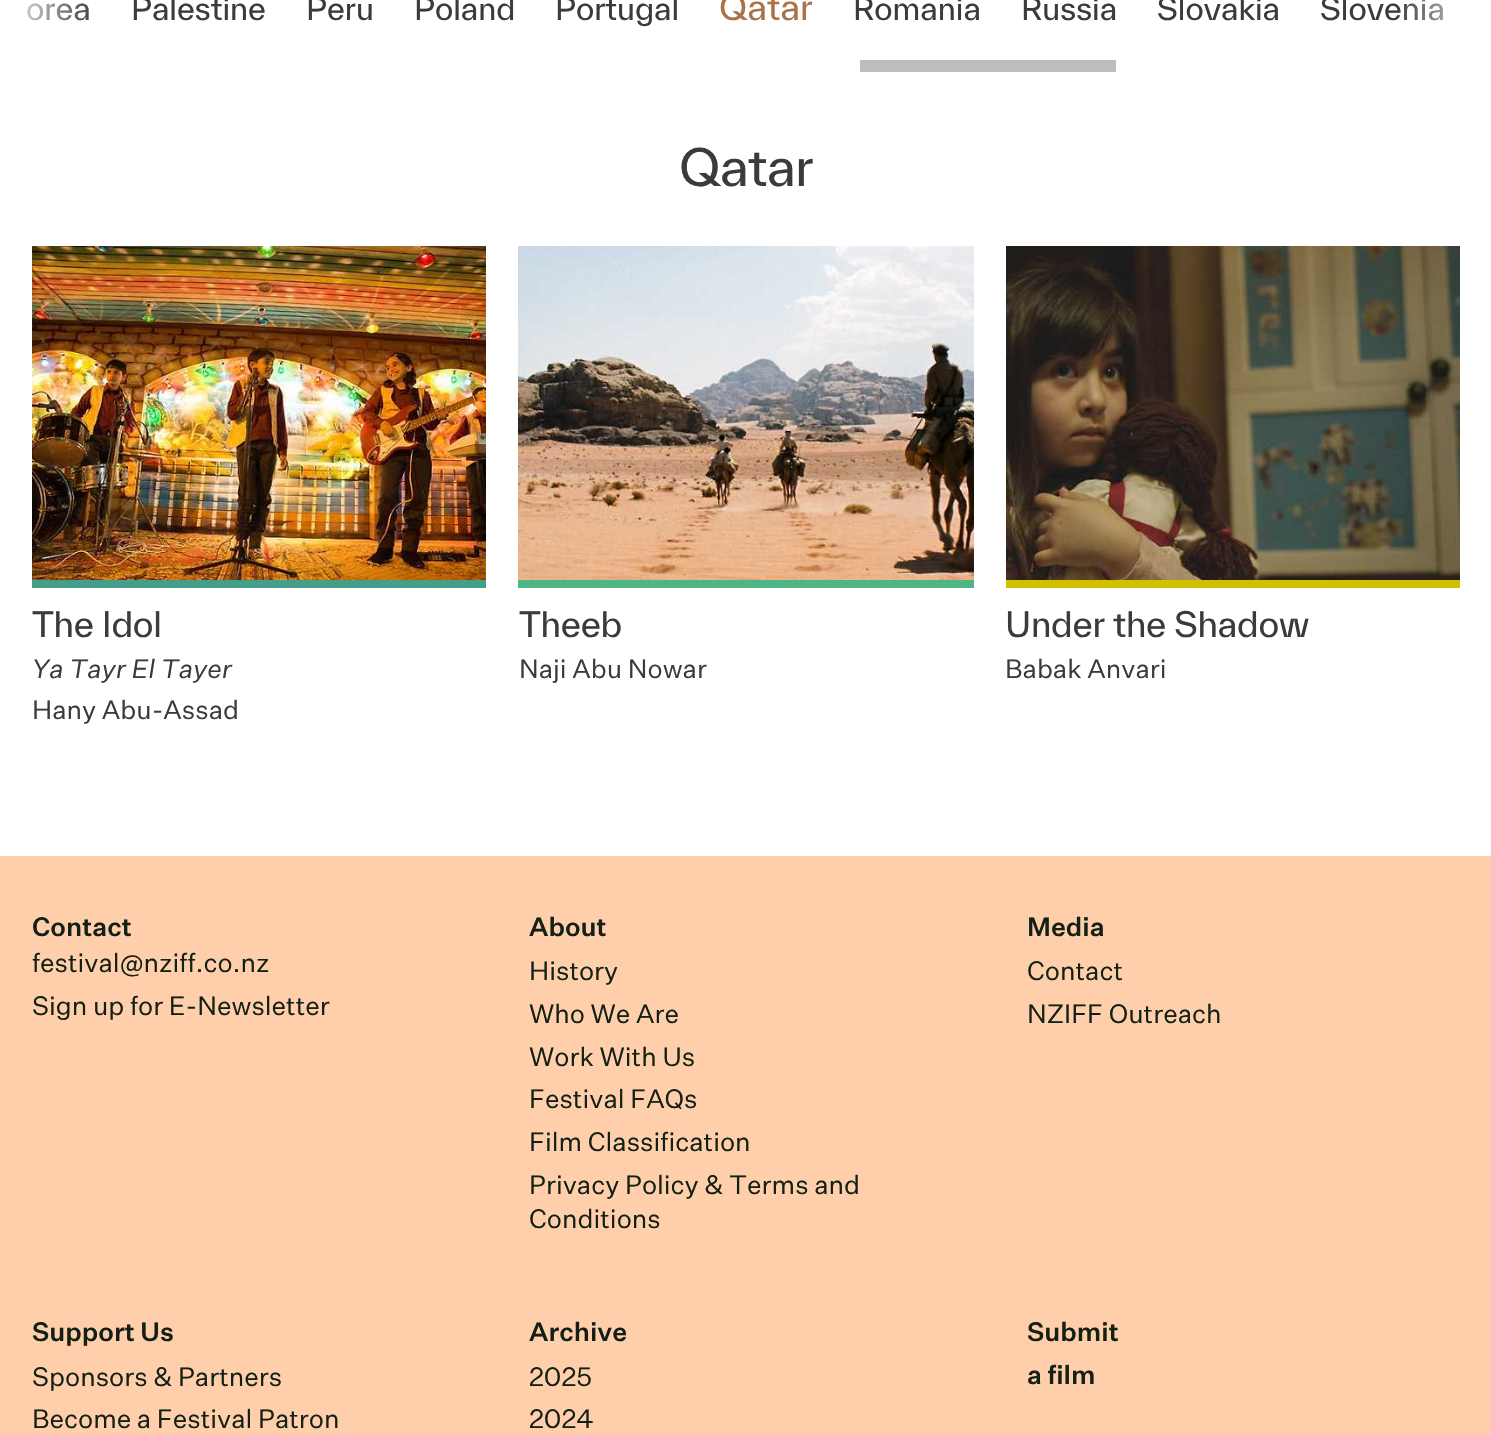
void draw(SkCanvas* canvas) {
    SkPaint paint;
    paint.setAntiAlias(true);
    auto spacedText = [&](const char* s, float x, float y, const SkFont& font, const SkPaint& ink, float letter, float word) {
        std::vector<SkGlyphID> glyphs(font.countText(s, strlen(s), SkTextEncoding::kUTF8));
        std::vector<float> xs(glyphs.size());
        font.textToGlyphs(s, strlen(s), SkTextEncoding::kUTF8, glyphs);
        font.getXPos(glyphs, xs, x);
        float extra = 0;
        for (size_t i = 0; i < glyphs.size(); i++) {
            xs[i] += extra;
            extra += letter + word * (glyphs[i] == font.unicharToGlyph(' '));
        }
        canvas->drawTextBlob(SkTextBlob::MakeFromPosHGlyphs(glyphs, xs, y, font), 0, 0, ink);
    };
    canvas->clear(0xFFFFFFFF);
    SkFont font1(fontMgr->matchFamilyStyle("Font", SkFontStyle::Normal()), 30);
    font1.setSubpixel(true);
    paint.setColor(0xFF3B3B3B);
    canvas->drawString("orea", 26, 20, font1, paint);
    {
        const SkColor colors[] = {0xFFFFFFFF, 0x00FFFFFF};
        const float stops[] = {0, 1};
        const SkPoint ends[] = {{0, 9}, {96, 9}};
        paint.setShader(SkGradientShader::MakeLinear(ends, colors, stops, 2, SkTileMode::kClamp));
        paint.setAlpha(255);
    }
    canvas->drawPath(SkPathBuilder().moveTo(0, -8).lineTo(96, -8).lineTo(96, 72).lineTo(8, 72).cubicTo(3.5f, 72, 0, 68.5f, 0, 64).close().detach(), paint);
    paint.setShader(nullptr);
    paint.setColor(0xFF3B3B3B);
    canvas->drawString("Slovenia", 1320, 20, font1, paint);
    {
        const SkColor colors[] = {0x00FFFFFF, 0xFFFFFFFF};
        const float stops[] = {0, 1};
        const SkPoint ends[] = {{1396, 9}, {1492, 9}};
        paint.setShader(SkGradientShader::MakeLinear(ends, colors, stops, 2, SkTileMode::kClamp));
        paint.setAlpha(255);
    }
    canvas->drawPath(SkPathBuilder().moveTo(1396, -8).lineTo(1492, -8).lineTo(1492, 64).cubicTo(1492, 68.5f, 1488.5f, 72, 1484, 72).lineTo(1396, 72).close().detach(), paint);
    paint.setShader(nullptr);
    paint.setColor(0xFF3B3B3B);
    canvas->drawString("Palestine", 131, 20, font1, paint);
    canvas->drawString("Peru", 306, 20, font1, paint);
    canvas->drawString("Poland", 414, 20, font1, paint);
    canvas->drawString("Portugal", 555, 20, font1, paint);
    SkFont font2(fontMgr->matchFamilyStyle("Font", SkFontStyle::Normal()), 34);
    font2.setSubpixel(true);
    paint.setColor(0xFFAA7248);
    canvas->drawString("Qatar", 719, 20, font2, paint);
    paint.setColor(0xFF3B3B3B);
    canvas->drawString("Romania", 853, 20, font1, paint);
    canvas->drawString("Russia", 1021, 20, font1, paint);
    canvas->drawString("Slovakia", 1157, 20, font1, paint);
    paint.setColor(0xFFBEBEBE);
    canvas->drawRect(SkRect::MakeXYWH(860, 60, 256, 12), paint);
    SkFont font3(fontMgr->matchFamilyStyle("Font", SkFontStyle::Normal()), 50);
    font3.setSubpixel(true);
    paint.setColor(0xFF3B3B3B);
    spacedText("Qatar", 679, 186, font3, paint, -0.75f, 0);
    canvas->drawImageRect(SkImages::DeferredFromEncodedData(SkData::MakeFromFileName("img1.png")), SkRect::MakeXYWH(32, 246, 454, 334), SkSamplingOptions());
    paint.setColor(0xFF449E89);
    canvas->drawRect(SkRect::MakeXYWH(32, 580, 454, 8), paint);
    paint.setColor(0xFF3B3B3B);
    spacedText("The Idol", 32, 637, font2, paint, -0.3f, 0);
    SkFont font4(fontMgr->matchFamilyStyle("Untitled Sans", SkFontStyle::Italic()), 26);
    font4.setSubpixel(true);
    canvas->drawString("Ya Tayr El Tayer", 32, 678, font4, paint);
    SkFont font5(fontMgr->matchFamilyStyle("Untitled Sans", SkFontStyle::Normal()), 26);
    font5.setSubpixel(true);
    canvas->drawString("Hany Abu-Assad", 32, 719, font5, paint);
    canvas->drawImageRect(SkImages::DeferredFromEncodedData(SkData::MakeFromFileName("img2.png")), SkRect::MakeXYWH(518, 246, 456, 334), SkSamplingOptions());
    paint.setColor(0xFF4EB587);
    canvas->drawRect(SkRect::MakeXYWH(518, 580, 456, 8), paint);
    paint.setColor(0xFF3B3B3B);
    spacedText("Theeb", 519, 637, font2, paint, -0.3f, 0);
    canvas->drawString("Naji Abu Nowar", 519, 678, font5, paint);
    canvas->drawImageRect(SkImages::DeferredFromEncodedData(SkData::MakeFromFileName("img3.png")), SkRect::MakeXYWH(1006, 246, 454, 334), SkSamplingOptions());
    paint.setColor(0xFFD1C000);
    canvas->drawRect(SkRect::MakeXYWH(1006, 580, 454, 8), paint);
    paint.setColor(0xFF3B3B3B);
    spacedText("Under the Shadow", 1005, 637, font2, paint, -0.3f, 0);
    canvas->drawString("Babak Anvari", 1005, 678, font5, paint);
    paint.setColor(0xFFFFCFAB);
    canvas->drawRect(SkRect::MakeXYWH(0, 856, 1491, 579), paint);
    SkFont font6(fontMgr->matchFamilyStyle("Untitled Sans", SkFontStyle(500, SkFontStyle::kNormal_Width, SkFontStyle::kUpright_Slant)), 26);
    font6.setSubpixel(true);
    paint.setColor(0xFF132015);
    canvas->drawString("Contact", 32, 936, font6, paint);
    canvas->drawString("festival@nziff.co.nz", 32, 972, font5, paint);
    canvas->drawString("Sign up for E-Newsletter", 32, 1015, font5, paint);
    canvas->drawString("About", 529, 936, font6, paint);
    canvas->drawString("History", 529, 980, font5, paint);
    canvas->drawString("Who We Are", 529, 1023, font5, paint);
    canvas->drawString("Work With Us", 529, 1066, font5, paint);
    canvas->drawString("Festival FAQs", 529, 1108, font5, paint);
    canvas->drawString("Film Classification", 529, 1151, font5, paint);
    canvas->drawString("Privacy Policy & Terms and", 529, 1194, font5, paint);
    canvas->drawString("Conditions", 529, 1228, font5, paint);
    canvas->drawString("Media", 1027, 936, font6, paint);
    canvas->drawString("Contact", 1027, 980, font5, paint);
    canvas->drawString("NZIFF Outreach", 1027, 1023, font5, paint);
    canvas->drawString("Support Us", 32, 1341, font6, paint);
    canvas->drawString("Sponsors & Partners", 32, 1386, font5, paint);
    canvas->drawString("Become a Festival Patron", 32, 1428, font5, paint);
    canvas->drawString("Archive", 529, 1341, font6, paint);
    canvas->drawString("2025", 529, 1386, font5, paint);
    canvas->drawString("2024", 529, 1428, font5, paint);
    canvas->drawString("Submit", 1027, 1341, font6, paint);
    canvas->drawString("a film", 1027, 1384, font6, paint);
}
